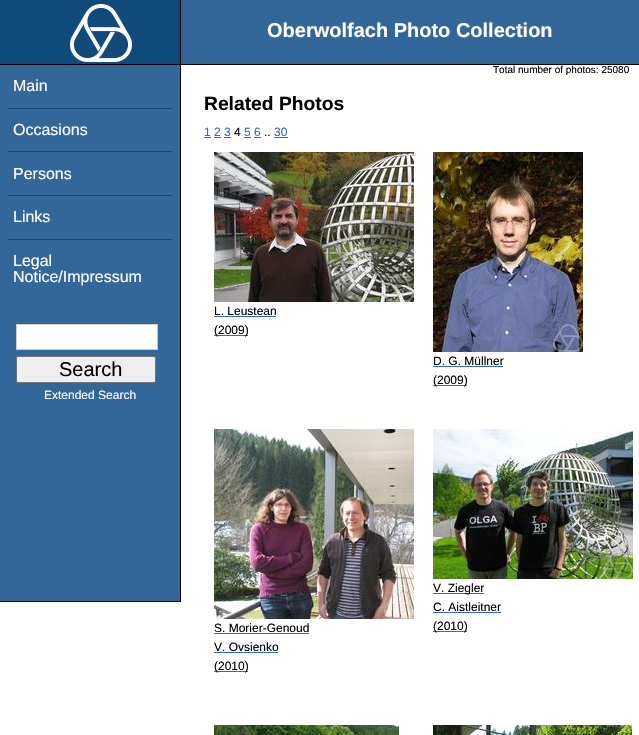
void draw(SkCanvas* canvas) {
    SkPaint paint;
    paint.setAntiAlias(true);
    canvas->clear(0xFFFFFFFF);
    paint.setColor(0xFF336699);
    canvas->drawRect(SkRect::MakeXYWH(181, 0, 458, 64), paint);
    paint.setColor(0xFF000000);
    canvas->drawRect(SkRect::MakeXYWH(0, 64, 639, 1), paint);
    paint.setColor(0xFF104A7B);
    canvas->drawRect(SkRect::MakeXYWH(0, 0, 180, 64), paint);
    paint.setColor(0xFF000000);
    canvas->drawRect(SkRect::MakeXYWH(180, 0, 1, 64), paint);
    canvas->drawImageRect(SkImages::DeferredFromEncodedData(SkData::MakeFromFileName("img1.png")), SkRect::MakeXYWH(70, 4, 62, 58), SkSamplingOptions());
    SkFont font1(fontMgr->matchFamilyStyle("Liberation Sans", SkFontStyle::Bold()), 20);
    font1.setSubpixel(true);
    paint.setColor(0xFFFFFFFF);
    canvas->drawString("Oberwolfach Photo Collection", 267, 37, font1, paint);
    SkFont font2(fontMgr->matchFamilyStyle("Liberation Sans", SkFontStyle::Normal()), 10);
    font2.setSubpixel(true);
    paint.setColor(0xFF000000);
    canvas->drawString("Total number of photos: 25080", 493, 73, font2, paint);
    paint.setColor(0xFF336699);
    canvas->drawRect(SkRect::MakeXYWH(0, 65, 180, 536), paint);
    paint.setColor(0xFF000000);
    canvas->drawRect(SkRect::MakeXYWH(180, 65, 1, 537), paint);
    canvas->drawRect(SkRect::MakeXYWH(0, 601, 181, 1), paint);
    SkFont font3(fontMgr->matchFamilyStyle("Liberation Sans", SkFontStyle::Normal()), 16);
    font3.setSubpixel(true);
    paint.setColor(0xFFFFFFFF);
    canvas->drawString("Main", 13, 91, font3, paint);
    paint.setColor(0xFF104A7B);
    canvas->drawRect(SkRect::MakeXYWH(8, 108, 164, 1), paint);
    paint.setColor(0xFFFFFFFF);
    canvas->drawString("Occasions", 13, 135, font3, paint);
    paint.setColor(0xFF104A7B);
    canvas->drawRect(SkRect::MakeXYWH(8, 151, 164, 1), paint);
    paint.setColor(0xFFFFFFFF);
    canvas->drawString("Persons", 13, 179, font3, paint);
    paint.setColor(0xFF104A7B);
    canvas->drawRect(SkRect::MakeXYWH(8, 195, 164, 1), paint);
    paint.setColor(0xFFFFFFFF);
    canvas->drawString("Links", 13, 222, font3, paint);
    paint.setColor(0xFF104A7B);
    canvas->drawRect(SkRect::MakeXYWH(8, 239, 164, 1), paint);
    paint.setColor(0xFFFFFFFF);
    canvas->drawString("Legal", 13, 266, font3, paint);
    canvas->drawString("Notice/Impressum", 13, 282, font3, paint);
    canvas->drawRect(SkRect::MakeXYWH(16.5f, 324.5f, 141, 25), paint);
    paint.setStyle(SkPaint::kStroke_Style);
    paint.setStrokeWidth(1);
    paint.setColor(0xFFCCCCCC);
    canvas->drawRect(SkRect::MakeXYWH(16.5f, 324.5f, 141, 25), paint);
    paint.setStyle(SkPaint::kFill_Style);
    paint.setColor(0xFFEFEFEF);
    canvas->drawRoundRect(SkRect::MakeXYWH(16.5f, 356.5f, 139, 26), 1.5f, 1.5f, paint);
    paint.setStyle(SkPaint::kStroke_Style);
    paint.setColor(0xFF767676);
    canvas->drawRoundRect(SkRect::MakeXYWH(16.5f, 356.5f, 139, 26), 1.5f, 1.5f, paint);
    SkFont font4(fontMgr->matchFamilyStyle("Liberation Sans", SkFontStyle::Normal()), 20);
    font4.setSubpixel(true);
    paint.setStyle(SkPaint::kFill_Style);
    paint.setColor(0xFF000000);
    canvas->drawString("Search", 59, 376, font4, paint);
    SkFont font5(fontMgr->matchFamilyStyle("Liberation Sans", SkFontStyle::Normal()), 12);
    font5.setSubpixel(true);
    paint.setColor(0xFFFFFFFF);
    canvas->drawString("Extended Search", 44, 399, font5, paint);
    SkFont font6(fontMgr->matchFamilyStyle("Liberation Sans", SkFontStyle::Bold()), 19.25f);
    font6.setSubpixel(true);
    paint.setColor(0xFF000000);
    canvas->drawString("Related Photos", 204, 110, font6, paint);
    paint.setColor(0xFF3366CC);
    canvas->drawString("1 2 3", 204, 136, font5, paint);
    canvas->drawRect(SkRect::MakeXYWH(204, 137, 7, 1), paint);
    paint.setColor(0xFF000000);
    canvas->drawString("4", 234, 136, font5, paint);
    paint.setColor(0xFF3366CC);
    canvas->drawString("5 6", 244, 136, font5, paint);
    canvas->drawRect(SkRect::MakeXYWH(244, 137, 7, 1), paint);
    paint.setColor(0xFF000000);
    canvas->drawString("..", 264, 136, font5, paint);
    paint.setColor(0xFF3366CC);
    canvas->drawString("30", 274, 136, font5, paint);
    canvas->drawRect(SkRect::MakeXYWH(274, 137, 14, 1), paint);
    canvas->drawRect(SkRect::MakeXYWH(214, 137, 7, 1), paint);
    canvas->drawRect(SkRect::MakeXYWH(224, 137, 7, 1), paint);
    canvas->drawRect(SkRect::MakeXYWH(254, 137, 7, 1), paint);
    canvas->drawImageRect(SkImages::DeferredFromEncodedData(SkData::MakeFromFileName("img2.png")), SkRect::MakeXYWH(214, 152, 200, 150), SkSamplingOptions());
    paint.setColor(0xFF000000);
    canvas->drawString("L. Leustean", 214, 315, font5, paint);
    paint.setColor(0xFF3366CC);
    canvas->drawRect(SkRect::MakeXYWH(214, 316, 62, 1), paint);
    canvas->drawRect(SkRect::MakeXYWH(214, 335, 34, 1), paint);
    paint.setColor(0xFF000000);
    canvas->drawString("(2009)", 214, 334, font5, paint);
    canvas->drawImageRect(SkImages::DeferredFromEncodedData(SkData::MakeFromFileName("img3.png")), SkRect::MakeXYWH(433, 152, 150, 200), SkSamplingOptions());
    canvas->drawString("D. G. Müllner", 433, 365, font5, paint);
    paint.setColor(0xFF3366CC);
    canvas->drawRect(SkRect::MakeXYWH(433, 366, 70, 1), paint);
    canvas->drawRect(SkRect::MakeXYWH(433, 385, 34, 1), paint);
    paint.setColor(0xFF000000);
    canvas->drawString("(2009)", 433, 384, font5, paint);
    canvas->drawImageRect(SkImages::DeferredFromEncodedData(SkData::MakeFromFileName("img4.png")), SkRect::MakeXYWH(433, 429, 200, 150), SkSamplingOptions());
    paint.setColor(0xFF3366CC);
    canvas->drawRect(SkRect::MakeXYWH(433, 593, 51, 1), paint);
    paint.setColor(0xFF000000);
    canvas->drawString("V. Ziegler", 433, 592, font5, paint);
    canvas->drawString("C. Aistleitner", 433, 611, font5, paint);
    paint.setColor(0xFF3366CC);
    canvas->drawRect(SkRect::MakeXYWH(433, 612, 68, 1), paint);
    canvas->drawRect(SkRect::MakeXYWH(433, 631, 34, 1), paint);
    paint.setColor(0xFF000000);
    canvas->drawString("(2010)", 433, 630, font5, paint);
    canvas->drawImageRect(SkImages::DeferredFromEncodedData(SkData::MakeFromFileName("img5.png")), SkRect::MakeXYWH(214, 429, 200, 190), SkSamplingOptions());
    canvas->drawString("S. Morier-Genoud", 214, 632, font5, paint);
    paint.setColor(0xFF3366CC);
    canvas->drawRect(SkRect::MakeXYWH(214, 633, 95, 1), paint);
    paint.setColor(0xFF000000);
    canvas->drawString("V. Ovsienko", 214, 651, font5, paint);
    paint.setColor(0xFF3366CC);
    canvas->drawRect(SkRect::MakeXYWH(214, 652, 64, 1), paint);
    canvas->drawRect(SkRect::MakeXYWH(214, 671, 34, 1), paint);
    paint.setColor(0xFF000000);
    canvas->drawString("(2010)", 214, 670, font5, paint);
    canvas->drawImageRect(SkImages::DeferredFromEncodedData(SkData::MakeFromFileName("img6.png")), SkRect::MakeXYWH(214, 725, 185, 10), SkSamplingOptions());
    canvas->drawImageRect(SkImages::DeferredFromEncodedData(SkData::MakeFromFileName("img7.png")), SkRect::MakeXYWH(433, 725, 199, 10), SkSamplingOptions());
}
